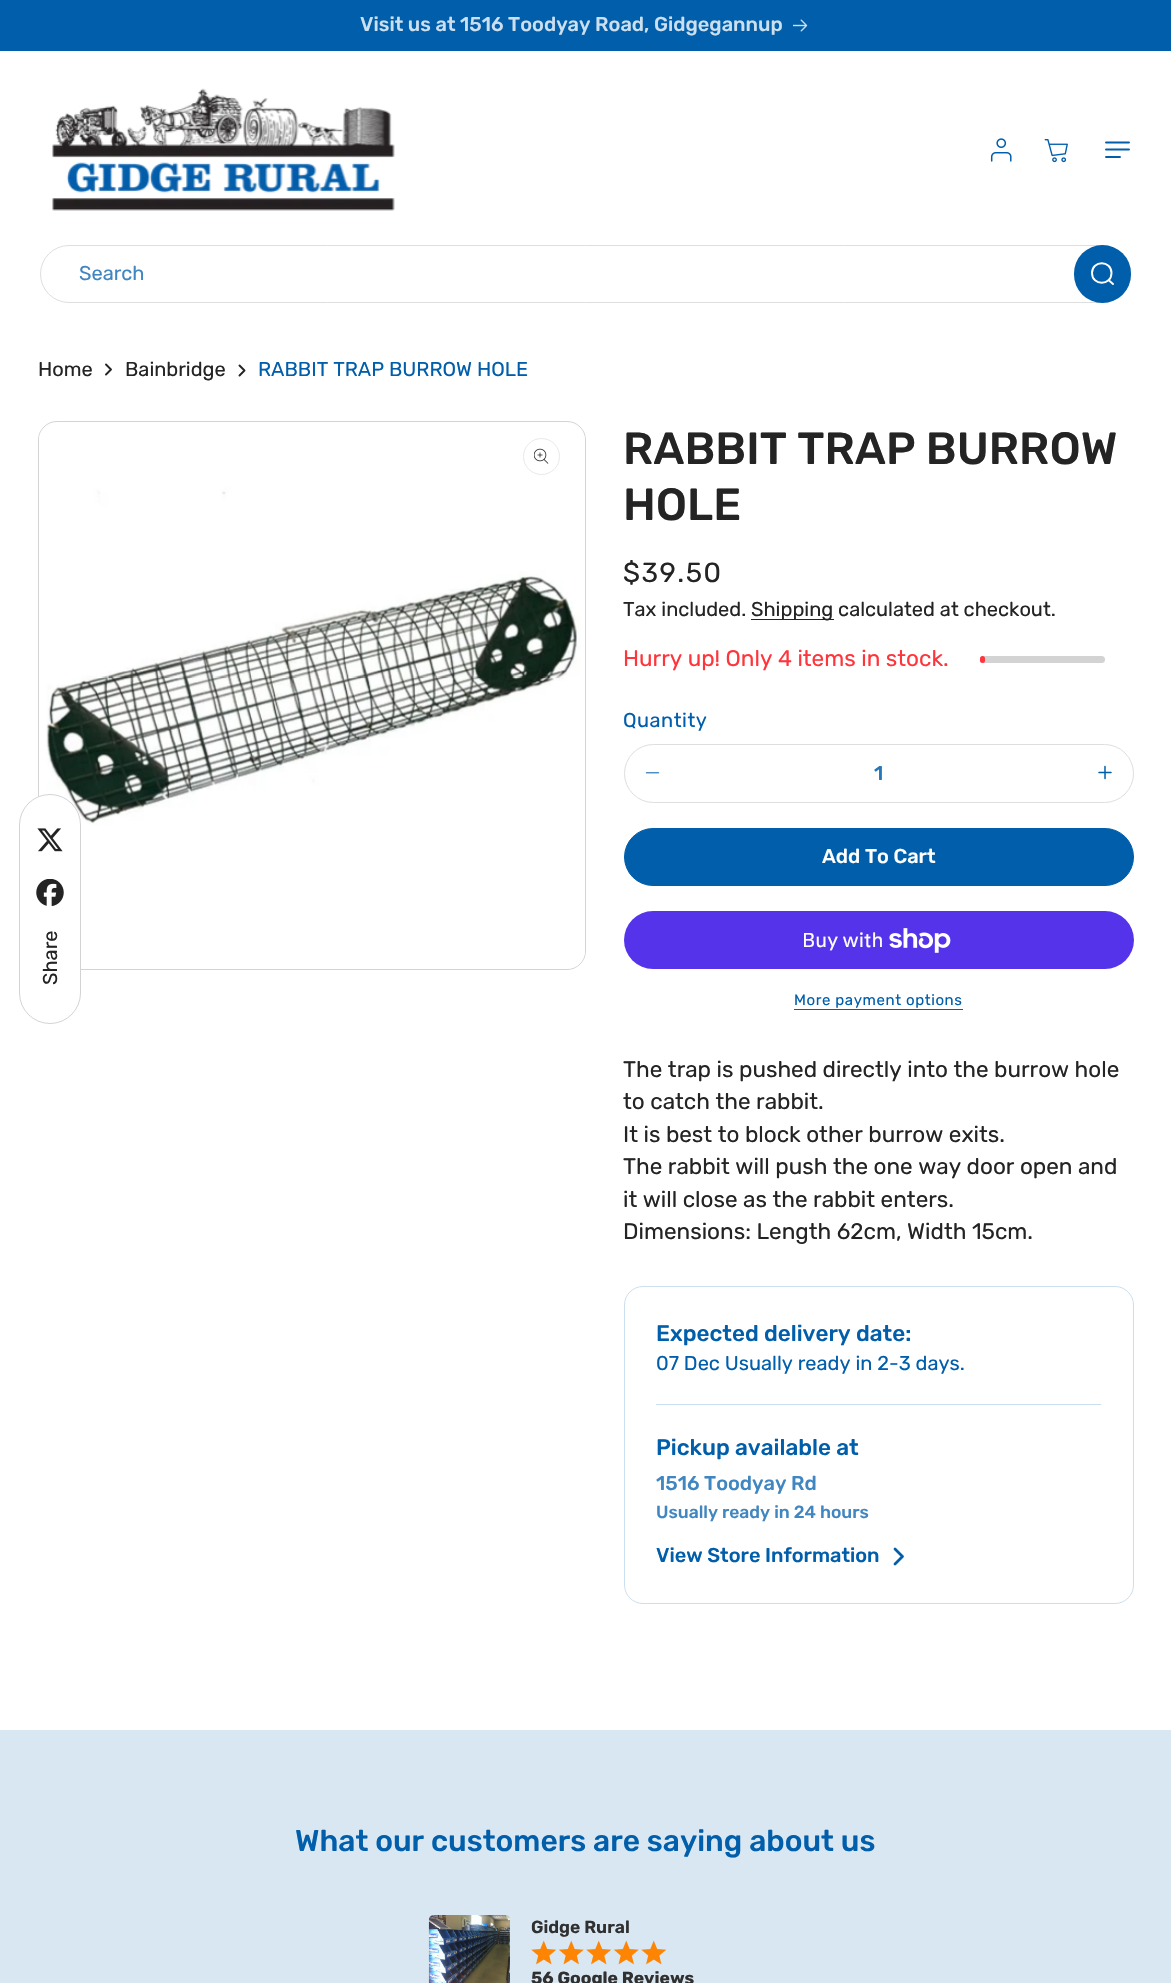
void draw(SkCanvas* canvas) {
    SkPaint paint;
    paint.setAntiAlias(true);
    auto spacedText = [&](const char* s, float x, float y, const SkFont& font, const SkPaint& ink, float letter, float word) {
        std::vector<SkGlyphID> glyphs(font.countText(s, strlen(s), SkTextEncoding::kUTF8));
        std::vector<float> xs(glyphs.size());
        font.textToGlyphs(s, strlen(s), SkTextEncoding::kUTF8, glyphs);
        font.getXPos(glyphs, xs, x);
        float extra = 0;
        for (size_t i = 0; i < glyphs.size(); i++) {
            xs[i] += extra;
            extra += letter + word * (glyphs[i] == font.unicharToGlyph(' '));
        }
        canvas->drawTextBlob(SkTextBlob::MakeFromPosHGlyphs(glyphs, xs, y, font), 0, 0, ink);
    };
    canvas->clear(0xFFFFFFFF);
    paint.setColor(0xFF005EAB);
    canvas->drawRect(SkRect::MakeXYWH(0, 0, 1171, 51), paint);
    SkFont font1(fontMgr->matchFamilyStyle("Rubik", SkFontStyle(500, SkFontStyle::kNormal_Width, SkFontStyle::kUpright_Slant)), 20);
    font1.setSubpixel(true);
    paint.setColor(0xFFCCDFEE);
    canvas->drawString("Visit us at 1516 Toodyay Road, Gidgegannup", 360, 31, font1, paint);
    canvas->drawImageRect(SkImages::DeferredFromEncodedData(SkData::MakeFromFileName("img1.png")), SkRect::MakeXYWH(793, 19, 15, 13), SkSamplingOptions());
    canvas->drawImageRect(SkImages::DeferredFromEncodedData(SkData::MakeFromFileName("img2.png")), SkRect::MakeXYWH(52, 88, 343, 123), SkSamplingOptions());
    canvas->drawImageRect(SkImages::DeferredFromEncodedData(SkData::MakeFromFileName("img3.png")), SkRect::MakeXYWH(990, 138, 22, 24), SkSamplingOptions());
    canvas->drawImageRect(SkImages::DeferredFromEncodedData(SkData::MakeFromFileName("img4.png")), SkRect::MakeXYWH(1044, 139, 24, 24), SkSamplingOptions());
    paint.setStyle(SkPaint::kStroke_Style);
    paint.setStrokeWidth(1.9f);
    paint.setStrokeCap(SkPaint::kRound_Cap);
    paint.setColor(0xFF005EAB);
    canvas->drawPath(SkPathBuilder().moveTo(1120, 157).lineTo(1106, 157).moveTo(1129, 149.5f).lineTo(1106, 149.5f).moveTo(1129, 142.5f).lineTo(1106, 142.5f).detach(), paint);
    paint.setStrokeWidth(1);
    paint.setStrokeCap(SkPaint::kButt_Cap);
    paint.setColor(0xFFDEDEDE);
    canvas->drawRoundRect(SkRect::MakeXYWH(40.5f, 245.5f, 1090, 57), 28.5f, 28.5f, paint);
    SkFont font2(fontMgr->matchFamilyStyle("Rubik", SkFontStyle::Normal()), 20);
    font2.setSubpixel(true);
    paint.setStyle(SkPaint::kFill_Style);
    paint.setColor(0xFF4086C0);
    canvas->drawString("Search", 79, 280, font2, paint);
    paint.setColor(0xFF005EAB);
    canvas->drawRoundRect(SkRect::MakeXYWH(1074, 245, 57, 58), 28.5f, 28.5f, paint);
    paint.setStyle(SkPaint::kStroke_Style);
    paint.setStrokeWidth(1.9f);
    paint.setStrokeCap(SkPaint::kRound_Cap);
    paint.setColor(0xFFFFFFFF);
    canvas->drawPath(SkPathBuilder().moveTo(1108.5f, 280).lineTo(1113, 284).moveTo(1111.5f, 273).cubicTo(1111.5f, 286, 1092, 286, 1092, 273).cubicTo(1092, 260, 1111.5f, 260, 1111.5f, 273).close().detach(), paint);
    paint.setStyle(SkPaint::kFill_Style);
    paint.setColor(0xFF242424);
    canvas->drawString("Home", 38, 376, font2, paint);
    paint.setStyle(SkPaint::kStroke_Style);
    paint.setStrokeJoin(SkPaint::kRound_Join);
    canvas->drawPath(SkPathBuilder().moveTo(106, 364.5f).lineTo(111, 369.5f).lineTo(106, 374.5f).detach(), paint);
    paint.setStyle(SkPaint::kFill_Style);
    canvas->drawString("Bainbridge", 125, 376, font2, paint);
    paint.setStyle(SkPaint::kStroke_Style);
    canvas->drawPath(SkPathBuilder().moveTo(239.5f, 365.5f).lineTo(244.5f, 370.5f).lineTo(239.5f, 375.5f).detach(), paint);
    paint.setStyle(SkPaint::kFill_Style);
    paint.setColor(0xFF005EAB);
    canvas->drawString("RABBIT TRAP BURROW HOLE", 258, 376, font2, paint);
    paint.setStyle(SkPaint::kStroke_Style);
    paint.setStrokeWidth(1);
    paint.setStrokeCap(SkPaint::kButt_Cap);
    paint.setStrokeJoin(SkPaint::kMiter_Join);
    paint.setColor(0xFFD3D3D3);
    canvas->drawRoundRect(SkRect::MakeXYWH(38.5f, 421.5f, 547, 548), 18.5f, 18.5f, paint);
    canvas->drawImageRect(SkImages::DeferredFromEncodedData(SkData::MakeFromFileName("img5.png")), SkRect::MakeXYWH(39, 430, 546, 539), SkSamplingOptions());
    paint.setColor(0xFFE9E9E9);
    canvas->drawCircle(541.5f, 456.5f, 18, paint);
    canvas->drawImageRect(SkImages::DeferredFromEncodedData(SkData::MakeFromFileName("img6.png")), SkRect::MakeXYWH(534, 448, 15, 16), SkSamplingOptions());
    SkFont font3(fontMgr->matchFamilyStyle("Rubik", SkFontStyle(500, SkFontStyle::kNormal_Width, SkFontStyle::kUpright_Slant)), 45);
    font3.setSubpixel(true);
    paint.setStyle(SkPaint::kFill_Style);
    paint.setColor(0xFF242424);
    canvas->drawString("RABBIT TRAP BURROW", 623, 464, font3, paint);
    canvas->drawString("HOLE", 623, 520, font3, paint);
    SkFont font4(fontMgr->matchFamilyStyle("Rubik", SkFontStyle::Normal()), 27.5f);
    font4.setSubpixel(true);
    spacedText("$39.50", 623, 582, font4, paint, 1.5f, 0);
    canvas->drawString("Tax included.", 623, 616, font2, paint);
    canvas->drawRect(SkRect::MakeXYWH(751, 619, 83, 1), paint);
    canvas->drawString("Shipping calculated at checkout.", 751, 616, font2, paint);
    SkFont font5(fontMgr->matchFamilyStyle("Rubik", SkFontStyle::Normal()), 22.5f);
    font5.setSubpixel(true);
    paint.setColor(0xFFFF353C);
    canvas->drawString("Hurry up! Only 4 items in stock.", 623, 666, font5, paint);
    paint.setColor(0xFFD3D3D3);
    canvas->drawRoundRect(SkRect::MakeXYWH(980, 656, 125, 7), 3.5f, 3.5f, paint);
    paint.setColor(0xFFFF353C);
    canvas->drawRoundRect(SkRect::MakeXYWH(980, 656, 5, 7), 2.5f, 2.5f, paint);
    paint.setColor(0xFF005EAB);
    spacedText("Quantity", 623, 727, font2, paint, 0.5f, 0);
    canvas->drawImageRect(SkImages::DeferredFromEncodedData(SkData::MakeFromFileName("img7.png")), SkRect::MakeXYWH(645, 772, 15, 2), SkSamplingOptions());
    canvas->drawImageRect(SkImages::DeferredFromEncodedData(SkData::MakeFromFileName("img8.png")), SkRect::MakeXYWH(1098, 765, 14, 15), SkSamplingOptions());
    paint.setStyle(SkPaint::kStroke_Style);
    paint.setColor(0xFFDEDEDE);
    canvas->drawRoundRect(SkRect::MakeXYWH(624.5f, 744.5f, 509, 58), 29, 29, paint);
    paint.setStyle(SkPaint::kFill_Style);
    paint.setColor(0xFF2676B8);
    canvas->drawString("1", 874, 780, font1, paint);
    paint.setColor(0xFF005EAB);
    canvas->drawRoundRect(SkRect::MakeXYWH(624.5f, 828.5f, 509, 57), 28.5f, 28.5f, paint);
    paint.setStyle(SkPaint::kStroke_Style);
    canvas->drawRoundRect(SkRect::MakeXYWH(624.5f, 828.5f, 509, 57), 28.5f, 28.5f, paint);
    paint.setStyle(SkPaint::kFill_Style);
    paint.setColor(0xFFFFFFFF);
    canvas->drawString("Add To Cart", 822, 863, font1, paint);
    paint.setColor(0xFF5433EB);
    canvas->drawRoundRect(SkRect::MakeXYWH(624, 911, 510, 58), 29, 29, paint);
    SkFont font6(fontMgr->matchFamilyStyle("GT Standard", SkFontStyle::Normal()), 20);
    font6.setSubpixel(true);
    paint.setColor(0xFFFFFFFF);
    canvas->drawString("Buy with", 802, 947, font6, paint);
    canvas->drawImageRect(SkImages::DeferredFromEncodedData(SkData::MakeFromFileName("img9.png")), SkRect::MakeXYWH(889, 928, 62, 25), SkSamplingOptions());
    SkFont font7(fontMgr->matchFamilyStyle("Rubik", SkFontStyle::Normal()), 15);
    font7.setSubpixel(true);
    paint.setColor(0xFF005EAB);
    spacedText("More payment options", 794, 1005, font7, paint, 0.6f, 0);
    canvas->drawRect(SkRect::MakeXYWH(794, 1009, 169, 1), paint);
    paint.setColor(0xFF242424);
    canvas->drawString("The trap is pushed directly into the burrow hole", 623, 1077, font5, paint);
    canvas->drawString("to catch the rabbit.", 623, 1109, font5, paint);
    canvas->drawString("It is best to block other burrow exits.", 623, 1142, font5, paint);
    canvas->drawString("The rabbit will push the one way door open and", 623, 1174, font5, paint);
    canvas->drawString("it will close as the rabbit enters.", 623, 1207, font5, paint);
    canvas->drawString("Dimensions: Length 62cm, Width 15cm.", 623, 1239, font5, paint);
    paint.setStyle(SkPaint::kStroke_Style);
    paint.setColor(0xFFCCDFEE);
    canvas->drawRoundRect(SkRect::MakeXYWH(624.5f, 1286.5f, 509, 317), 18.5f, 18.5f, paint);
    SkFont font8(fontMgr->matchFamilyStyle("Rubik", SkFontStyle(500, SkFontStyle::kNormal_Width, SkFontStyle::kUpright_Slant)), 22.5f);
    font8.setSubpixel(true);
    paint.setStyle(SkPaint::kFill_Style);
    paint.setColor(0xFF005EAB);
    canvas->drawString("Expected delivery date:", 656, 1341, font8, paint);
    canvas->drawString("07 Dec Usually ready in 2-3 days.", 656, 1370, font2, paint);
    paint.setColor(0xFFCCDFEE);
    canvas->drawRect(SkRect::MakeXYWH(656, 1404, 445, 1), paint);
    paint.setColor(0xFF005EAB);
    canvas->drawString("Pickup available at", 656, 1455, font8, paint);
    paint.setColor(0xFF4086C0);
    canvas->drawString("1516 Toodyay Rd", 656, 1490, font1, paint);
    SkFont font9(fontMgr->matchFamilyStyle("Rubik", SkFontStyle(500, SkFontStyle::kNormal_Width, SkFontStyle::kUpright_Slant)), 17.5f);
    font9.setSubpixel(true);
    canvas->drawString("Usually ready in 24 hours", 656, 1518, font9, paint);
    paint.setColor(0xFF005EAB);
    canvas->drawString("View Store Information", 656, 1562, font1, paint);
    paint.setStyle(SkPaint::kStroke_Style);
    paint.setStrokeWidth(2.8f);
    paint.setStrokeCap(SkPaint::kRound_Cap);
    paint.setStrokeJoin(SkPaint::kRound_Join);
    canvas->drawPath(SkPathBuilder().moveTo(895, 1549).lineTo(902.5f, 1556.5f).lineTo(895, 1564).detach(), paint);
    paint.setStyle(SkPaint::kFill_Style);
    paint.setColor(0xFFFFFFFF);
    canvas->drawRoundRect(SkRect::MakeXYWH(19, 794, 62, 230), 31, 31, paint);
    paint.setStyle(SkPaint::kStroke_Style);
    paint.setStrokeWidth(1);
    paint.setStrokeCap(SkPaint::kButt_Cap);
    paint.setStrokeJoin(SkPaint::kMiter_Join);
    paint.setColor(0x33242424);
    canvas->drawRoundRect(SkRect::MakeXYWH(19.5f, 794.5f, 61, 229), 30.5f, 30.5f, paint);
    canvas->drawImageRect(SkImages::DeferredFromEncodedData(SkData::MakeFromFileName("img10.png")), SkRect::MakeXYWH(37, 828, 26, 24), SkSamplingOptions());
    canvas->drawImageRect(SkImages::DeferredFromEncodedData(SkData::MakeFromFileName("img11.png")), SkRect::MakeXYWH(36, 879, 28, 27), SkSamplingOptions());
    paint.setStyle(SkPaint::kFill_Style);
    paint.setColor(0xFF242424);
    canvas->save();
    canvas->rotate(-90, 57, 985);
    canvas->drawString("Share", 57, 985, font2, paint);
    canvas->restore();
    paint.setColor(0xFFD9E7F2);
    canvas->drawRect(SkRect::MakeXYWH(0, 1730, 1171, 253), paint);
    SkFont font10(fontMgr->matchFamilyStyle("Rubik", SkFontStyle(500, SkFontStyle::kNormal_Width, SkFontStyle::kUpright_Slant)), 30);
    font10.setSubpixel(true);
    paint.setColor(0xFF005EAB);
    canvas->drawString("What our customers are saying about us", 295, 1851, font10, paint);
    canvas->drawImageRect(SkImages::DeferredFromEncodedData(SkData::MakeFromFileName("img12.png")), SkRect::MakeXYWH(428, 1915, 82, 68), SkSamplingOptions());
    SkFont font11(fontMgr->matchFamilyStyle("Rubik", SkFontStyle(600, SkFontStyle::kNormal_Width, SkFontStyle::kUpright_Slant)), 17.5f);
    font11.setSubpixel(true);
    paint.setColor(0xFF303030);
    canvas->drawString("Gidge Rural", 531, 1933, font11, paint);
    canvas->drawImageRect(SkImages::DeferredFromEncodedData(SkData::MakeFromFileName("img13.png")), SkRect::MakeXYWH(531, 1940, 25, 25), SkSamplingOptions());
    canvas->drawImageRect(SkImages::DeferredFromEncodedData(SkData::MakeFromFileName("img14.png")), SkRect::MakeXYWH(559, 1940, 25, 25), SkSamplingOptions());
    canvas->drawImageRect(SkImages::DeferredFromEncodedData(SkData::MakeFromFileName("img13.png")), SkRect::MakeXYWH(586, 1940, 25, 25), SkSamplingOptions());
    canvas->drawImageRect(SkImages::DeferredFromEncodedData(SkData::MakeFromFileName("img14.png")), SkRect::MakeXYWH(614, 1940, 25, 25), SkSamplingOptions());
    canvas->drawImageRect(SkImages::DeferredFromEncodedData(SkData::MakeFromFileName("img13.png")), SkRect::MakeXYWH(641, 1940, 25, 25), SkSamplingOptions());
    SkFont font12(fontMgr->matchFamilyStyle("Rubik", SkFontStyle::Bold()), 17.5f);
    font12.setSubpixel(true);
    canvas->drawString("56 Google Reviews", 531, 1984, font12, paint);
}
